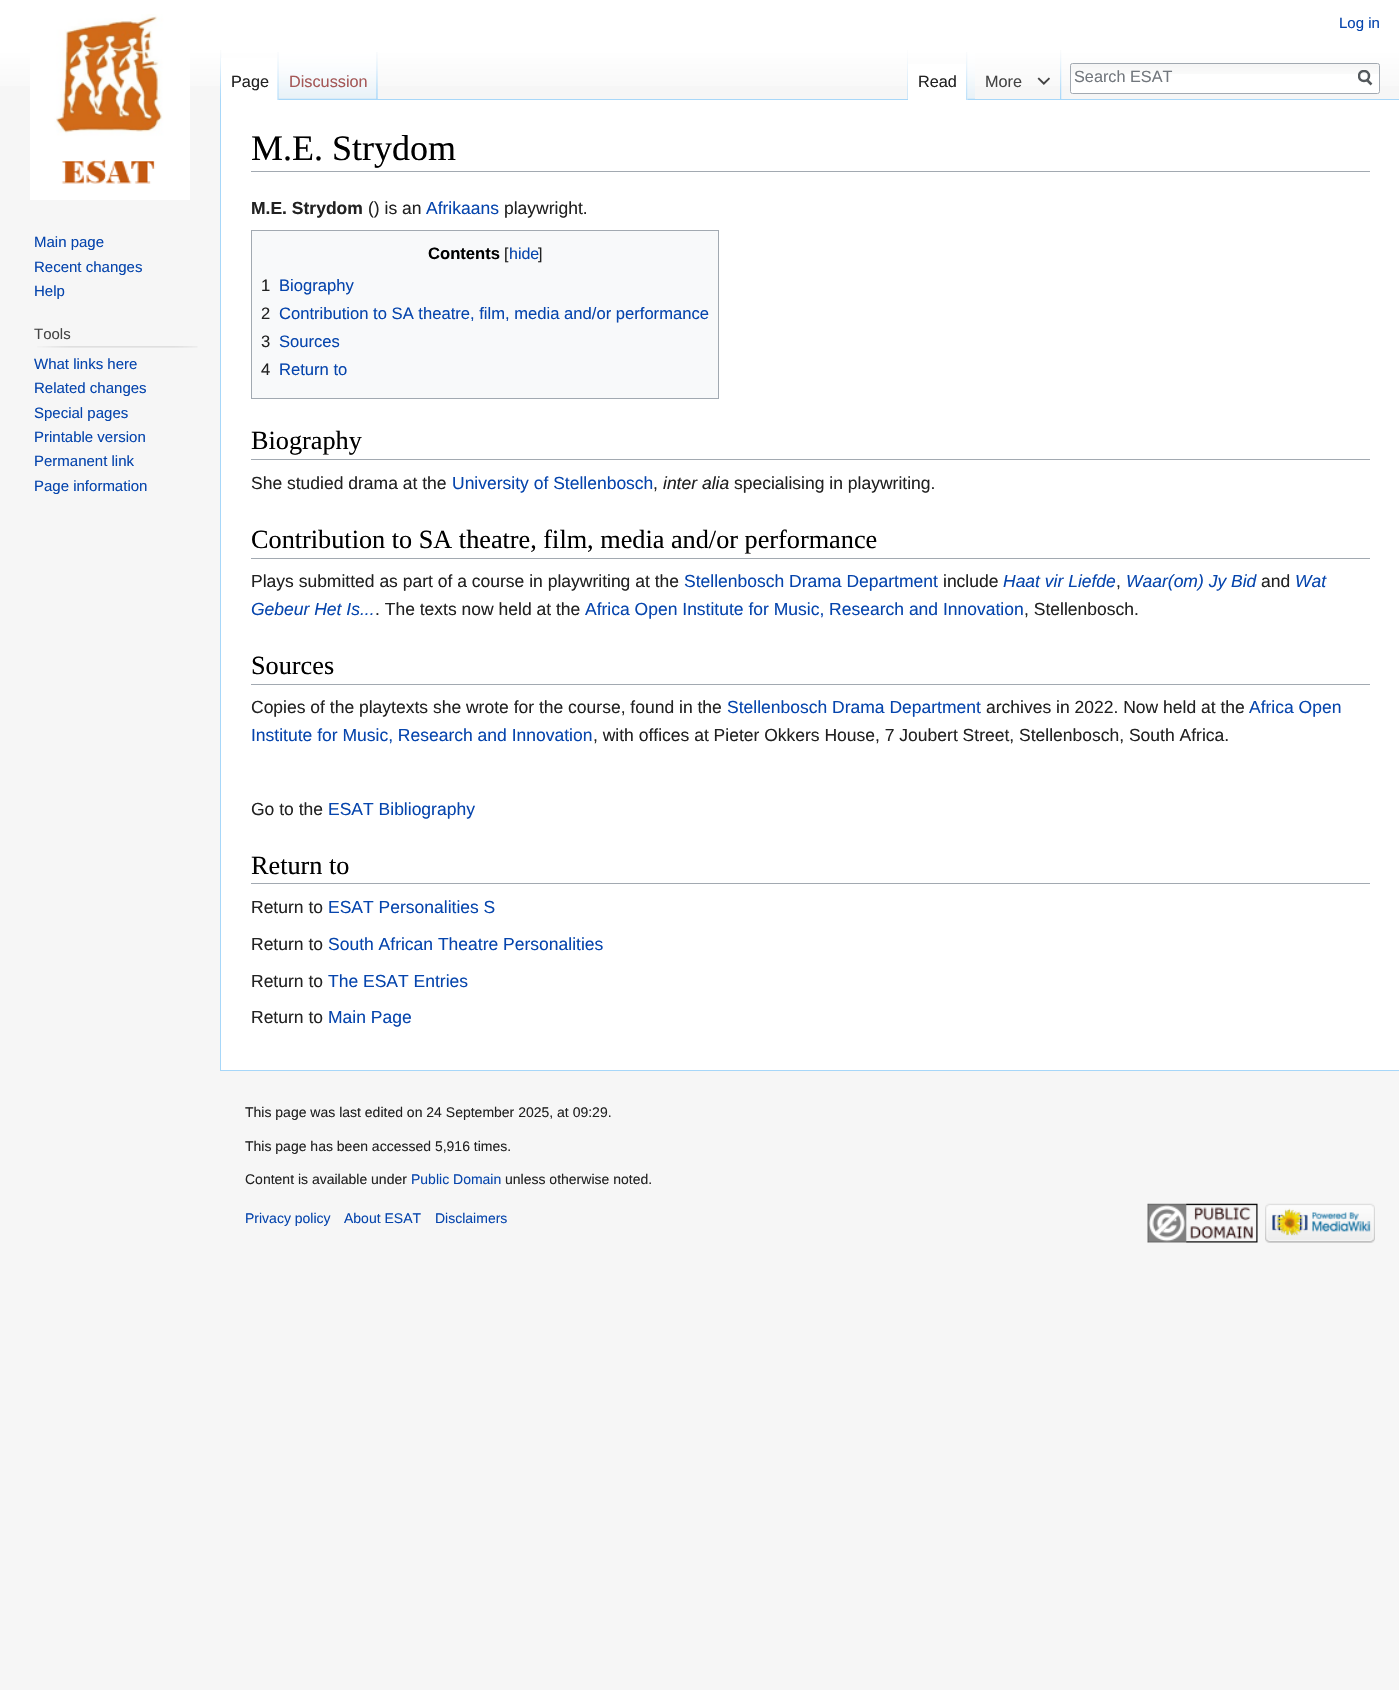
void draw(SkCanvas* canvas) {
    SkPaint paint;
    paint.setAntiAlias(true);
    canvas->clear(0xFFF6F6F6);
    {
        const SkColor colors[] = {0xFFFFFFFF, 0xFFF6F6F6};
        const float stops[] = {0.5f, 1};
        const SkPoint ends[] = {{700, 0}, {700, 100}};
        paint.setShader(SkGradientShader::MakeLinear(ends, colors, stops, 2, SkTileMode::kClamp));
        paint.setAlpha(255);
    }
    canvas->drawRect(SkRect::MakeXYWH(0, 0, 1399, 86), paint);
    SkFont font1(fontMgr->matchFamilyStyle("Liberation Sans", SkFontStyle::Normal()), 15);
    font1.setSubpixel(true);
    paint.setShader(nullptr);
    paint.setColor(0xFF0645AD);
    canvas->drawString("Log in", 1339, 28, font1, paint);
    canvas->drawImageRect(SkImages::DeferredFromEncodedData(SkData::MakeFromFileName("img1.png")), SkRect::MakeXYWH(220, 50, 2, 49), SkSamplingOptions());
    canvas->drawImageRect(SkImages::DeferredFromEncodedData(SkData::MakeFromFileName("img2.png")), SkRect::MakeXYWH(377, 52, 1, 47), SkSamplingOptions());
    paint.setColor(0xFFFFFFFF);
    canvas->drawRect(SkRect::MakeXYWH(221, 58, 58, 42), paint);
    canvas->drawImageRect(SkImages::DeferredFromEncodedData(SkData::MakeFromFileName("img3.png")), SkRect::MakeXYWH(277, 52, 2, 48), SkSamplingOptions());
    SkFont font2(fontMgr->matchFamilyStyle("Liberation Sans", SkFontStyle::Normal()), 16.25f);
    font2.setSubpixel(true);
    paint.setColor(0xFF222222);
    canvas->drawString("Page", 231, 87, font2, paint);
    paint.setColor(0xFFA7D7F9);
    canvas->drawRect(SkRect::MakeXYWH(377, 99, 1022, 1), paint);
    canvas->drawImageRect(SkImages::DeferredFromEncodedData(SkData::MakeFromFileName("img4.png")), SkRect::MakeXYWH(278, 52, 100, 48), SkSamplingOptions());
    canvas->drawImageRect(SkImages::DeferredFromEncodedData(SkData::MakeFromFileName("img5.png")), SkRect::MakeXYWH(376, 52, 2, 47), SkSamplingOptions());
    paint.setColor(0xFFA55858);
    canvas->drawString("Discussion", 289, 87, font2, paint);
    canvas->drawImageRect(SkImages::DeferredFromEncodedData(SkData::MakeFromFileName("img6.png")), SkRect::MakeXYWH(907, 50, 1, 49), SkSamplingOptions());
    paint.setColor(0xFFFFFFFF);
    canvas->drawRect(SkRect::MakeXYWH(908, 64, 60, 36), paint);
    canvas->drawImageRect(SkImages::DeferredFromEncodedData(SkData::MakeFromFileName("img7.png")), SkRect::MakeXYWH(966, 52, 2, 48), SkSamplingOptions());
    paint.setColor(0xFF222222);
    canvas->drawString("Read", 918, 87, font2, paint);
    canvas->drawImageRect(SkImages::DeferredFromEncodedData(SkData::MakeFromFileName("img8.png")), SkRect::MakeXYWH(967, 50, 8, 50), SkSamplingOptions());
    canvas->drawImageRect(SkImages::DeferredFromEncodedData(SkData::MakeFromFileName("img1.png")), SkRect::MakeXYWH(1060, 50, 2, 49), SkSamplingOptions());
    paint.setColor(0xFF444444);
    canvas->drawString("More", 985, 87, font2, paint);
    canvas->drawImageRect(SkImages::DeferredFromEncodedData(SkData::MakeFromFileName("img9.png")), SkRect::MakeXYWH(1037, 77, 13, 8), SkSamplingOptions());
    paint.setColor(0xFFFFFFFF);
    canvas->drawRoundRect(SkRect::MakeXYWH(1070, 63, 310, 31), 2.5f, 2.5f, paint);
    canvas->drawImageRect(SkImages::DeferredFromEncodedData(SkData::MakeFromFileName("img10.png")), SkRect::MakeXYWH(1070, 64, 310, 10), SkSamplingOptions());
    paint.setStyle(SkPaint::kStroke_Style);
    paint.setStrokeWidth(1);
    paint.setColor(0xFFA2A9B1);
    canvas->drawRoundRect(SkRect::MakeXYWH(1070.5f, 63.5f, 309, 30), 2, 2, paint);
    paint.setStyle(SkPaint::kFill_Style);
    paint.setColor(0xFF72777D);
    canvas->drawString("Search ESAT", 1074, 82, font2, paint);
    paint.setStyle(SkPaint::kStroke_Style);
    paint.setStrokeWidth(2.5f);
    paint.setColor(0xFF54595D);
    canvas->drawPath(SkPathBuilder().moveTo(1371.5f, 84.5f).lineTo(1366.5f, 79.5f).detach(), paint);
    canvas->save();
    canvas->clipRect(SkRect::MakeXYWH(1358, 70, 15, 16));
    canvas->drawCircle(1364, 76, 5, paint);
    canvas->restore();
    canvas->drawImageRect(SkImages::DeferredFromEncodedData(SkData::MakeFromFileName("img11.png")), SkRect::MakeXYWH(30, 14, 160, 186), SkSamplingOptions());
    paint.setStyle(SkPaint::kFill_Style);
    paint.setColor(0xFF0645AD);
    canvas->drawString("Main page", 34, 247, font1, paint);
    canvas->drawString("Recent changes", 34, 272, font1, paint);
    canvas->drawString("Help", 34, 296, font1, paint);
    paint.setColor(0xFF444444);
    canvas->drawString("Tools", 34, 339, font1, paint);
    canvas->drawImageRect(SkImages::DeferredFromEncodedData(SkData::MakeFromFileName("img12.png")), SkRect::MakeXYWH(37, 346, 161, 2), SkSamplingOptions());
    paint.setColor(0xFF0645AD);
    canvas->drawString("What links here", 34, 369, font1, paint);
    canvas->drawString("Related changes", 34, 393, font1, paint);
    canvas->drawString("Special pages", 34, 418, font1, paint);
    canvas->drawString("Printable version", 34, 442, font1, paint);
    canvas->drawString("Permanent link", 34, 466, font1, paint);
    canvas->drawString("Page information", 34, 491, font1, paint);
    paint.setColor(0xFFFFFFFF);
    canvas->drawRect(SkRect::MakeXYWH(221, 100, 1178, 970), paint);
    paint.setColor(0xFFA7D7F9);
    canvas->drawRect(SkRect::MakeXYWH(220, 1070, 1179, 1), paint);
    canvas->drawRect(SkRect::MakeXYWH(220, 99, 1, 972), paint);
    paint.setColor(0xFFA2A9B1);
    canvas->drawRect(SkRect::MakeXYWH(251, 171, 1119, 1), paint);
    SkFont font3(fontMgr->matchFamilyStyle("Liberation Serif", SkFontStyle::Normal()), 36);
    font3.setSubpixel(true);
    paint.setColor(0xFF000000);
    canvas->drawString("M.E. Strydom", 251, 160, font3, paint);
    SkFont font4(fontMgr->matchFamilyStyle("Liberation Sans", SkFontStyle::Bold()), 17.5f);
    font4.setSubpixel(true);
    paint.setColor(0xFF222222);
    canvas->drawString("M.E. Strydom", 251, 214, font4, paint);
    SkFont font5(fontMgr->matchFamilyStyle("Liberation Sans", SkFontStyle::Normal()), 17.5f);
    font5.setSubpixel(true);
    canvas->drawString("() is an", 368, 214, font5, paint);
    paint.setColor(0xFF0645AD);
    canvas->drawString("Afrikaans", 426, 214, font5, paint);
    paint.setColor(0xFF222222);
    canvas->drawString("playwright.", 504, 214, font5, paint);
    paint.setColor(0xFFF8F9FA);
    canvas->drawRect(SkRect::MakeXYWH(251.5f, 230.5f, 467, 168), paint);
    paint.setStyle(SkPaint::kStroke_Style);
    paint.setStrokeWidth(1);
    paint.setColor(0xFFA2A9B1);
    canvas->drawRect(SkRect::MakeXYWH(251.5f, 230.5f, 467, 168), paint);
    SkFont font6(fontMgr->matchFamilyStyle("Liberation Sans", SkFontStyle::Bold()), 16.6f);
    font6.setSubpixel(true);
    paint.setStyle(SkPaint::kFill_Style);
    paint.setColor(0xFF000000);
    canvas->drawString("Contents", 428, 259, font6, paint);
    SkFont font7(fontMgr->matchFamilyStyle("Liberation Sans", SkFontStyle::Normal()), 16);
    font7.setSubpixel(true);
    paint.setColor(0xFF222222);
    canvas->drawString("[", 504, 259, font7, paint);
    paint.setColor(0xFF0645AD);
    canvas->drawString("hide", 509, 259, font7, paint);
    paint.setColor(0xFF222222);
    canvas->drawString("]", 538, 259, font7, paint);
    SkFont font8(fontMgr->matchFamilyStyle("Liberation Sans", SkFontStyle::Normal()), 16.6f);
    font8.setSubpixel(true);
    canvas->drawString("1", 261, 291, font8, paint);
    paint.setColor(0xFF0645AD);
    canvas->drawString("Biography", 279, 291, font8, paint);
    paint.setColor(0xFF222222);
    canvas->drawString("2", 261, 319, font8, paint);
    paint.setColor(0xFF0645AD);
    canvas->drawString("Contribution to SA theatre, film, media and/or performance", 279, 319, font8, paint);
    paint.setColor(0xFF222222);
    canvas->drawString("3", 261, 347, font8, paint);
    paint.setColor(0xFF0645AD);
    canvas->drawString("Sources", 279, 347, font8, paint);
    paint.setColor(0xFF222222);
    canvas->drawString("4", 261, 375, font8, paint);
    paint.setColor(0xFF0645AD);
    canvas->drawString("Return to", 279, 375, font8, paint);
    paint.setColor(0xFFA2A9B1);
    canvas->drawRect(SkRect::MakeXYWH(251, 459, 1119, 1), paint);
    SkFont font9(fontMgr->matchFamilyStyle("Liberation Serif", SkFontStyle::Normal()), 26.25f);
    font9.setSubpixel(true);
    paint.setColor(0xFF000000);
    canvas->drawString("Biography", 251, 449, font9, paint);
    paint.setColor(0xFF222222);
    canvas->drawString("She studied drama at the", 251, 489, font5, paint);
    paint.setColor(0xFF0645AD);
    canvas->drawString("University of Stellenbosch", 452, 489, font5, paint);
    paint.setColor(0xFF222222);
    canvas->drawString(",", 653, 489, font5, paint);
    SkFont font10(fontMgr->matchFamilyStyle("Liberation Sans", SkFontStyle::Italic()), 17.5f);
    font10.setSubpixel(true);
    canvas->drawString("inter alia", 663, 489, font10, paint);
    canvas->drawString("specialising in playwriting.", 734, 489, font5, paint);
    paint.setColor(0xFFA2A9B1);
    canvas->drawRect(SkRect::MakeXYWH(251, 558, 1119, 1), paint);
    paint.setColor(0xFF000000);
    canvas->drawString("Contribution to SA theatre, film, media and/or performance", 251, 548, font9, paint);
    paint.setColor(0xFF222222);
    canvas->drawString("Plays submitted as part of a course in playwriting at the", 251, 587, font5, paint);
    paint.setColor(0xFF0645AD);
    canvas->drawString("Stellenbosch Drama Department", 684, 587, font5, paint);
    paint.setColor(0xFF222222);
    canvas->drawString("include", 943, 587, font5, paint);
    paint.setColor(0xFF0645AD);
    canvas->drawString("Haat vir Liefde", 1003, 587, font10, paint);
    paint.setColor(0xFF222222);
    canvas->drawString(",", 1116, 587, font5, paint);
    paint.setColor(0xFF0645AD);
    canvas->drawString("Waar(om) Jy Bid", 1126, 587, font10, paint);
    paint.setColor(0xFF222222);
    canvas->drawString("and", 1261, 587, font5, paint);
    paint.setColor(0xFF0645AD);
    canvas->drawString("Wat", 1295, 587, font10, paint);
    canvas->drawString("Gebeur Het Is...", 251, 615, font10, paint);
    paint.setColor(0xFF222222);
    canvas->drawString(". The texts now held at the", 375, 615, font5, paint);
    paint.setColor(0xFF0645AD);
    canvas->drawString("Africa Open Institute for Music, Research and Innovation", 585, 615, font5, paint);
    paint.setColor(0xFF222222);
    canvas->drawString(", Stellenbosch.", 1024, 615, font5, paint);
    paint.setColor(0xFFA2A9B1);
    canvas->drawRect(SkRect::MakeXYWH(251, 684, 1119, 1), paint);
    paint.setColor(0xFF000000);
    canvas->drawString("Sources", 251, 674, font9, paint);
    paint.setColor(0xFF222222);
    canvas->drawString("Copies of the playtexts she wrote for the course, found in the", 251, 713, font5, paint);
    paint.setColor(0xFF0645AD);
    canvas->drawString("Stellenbosch Drama Department", 727, 713, font5, paint);
    paint.setColor(0xFF222222);
    canvas->drawString("archives in 2022. Now held at the", 986, 713, font5, paint);
    paint.setColor(0xFF0645AD);
    canvas->drawString("Africa Open", 1249, 713, font5, paint);
    canvas->drawString("Institute for Music, Research and Innovation", 251, 741, font5, paint);
    paint.setColor(0xFF222222);
    canvas->drawString(", with offices at Pieter Okkers House, 7 Joubert Street, Stellenbosch, South Africa.", 593, 741, font5, paint);
    canvas->drawString("Go to the", 251, 815, font5, paint);
    paint.setColor(0xFF0645AD);
    canvas->drawString("ESAT Bibliography", 328, 815, font5, paint);
    paint.setColor(0xFFA2A9B1);
    canvas->drawRect(SkRect::MakeXYWH(251, 883, 1119, 1), paint);
    paint.setColor(0xFF000000);
    canvas->drawString("Return to", 251, 874, font9, paint);
    paint.setColor(0xFF222222);
    canvas->drawString("Return to", 251, 913, font5, paint);
    paint.setColor(0xFF0645AD);
    canvas->drawString("ESAT Personalities S", 328, 913, font5, paint);
    paint.setColor(0xFF222222);
    canvas->drawString("Return to", 251, 950, font5, paint);
    paint.setColor(0xFF0645AD);
    canvas->drawString("South African Theatre Personalities", 328, 950, font5, paint);
    paint.setColor(0xFF222222);
    canvas->drawString("Return to", 251, 987, font5, paint);
    paint.setColor(0xFF0645AD);
    canvas->drawString("The ESAT Entries", 328, 987, font5, paint);
    paint.setColor(0xFF222222);
    canvas->drawString("Return to", 251, 1023, font5, paint);
    paint.setColor(0xFF0645AD);
    canvas->drawString("Main Page", 328, 1023, font5, paint);
    SkFont font11(fontMgr->matchFamilyStyle("Liberation Sans", SkFontStyle::Normal()), 14);
    font11.setSubpixel(true);
    paint.setColor(0xFF222222);
    canvas->drawString("This page was last edited on 24 September 2025, at 09:29.", 245, 1117, font11, paint);
    canvas->drawString("This page has been accessed 5,916 times.", 245, 1151, font11, paint);
    canvas->drawString("Content is available under", 245, 1184, font11, paint);
    paint.setColor(0xFF0645AD);
    canvas->drawString("Public Domain", 411, 1184, font11, paint);
    paint.setColor(0xFF222222);
    canvas->drawString("unless otherwise noted.", 505, 1184, font11, paint);
    paint.setColor(0xFF0645AD);
    canvas->drawString("Privacy policy", 245, 1223, font11, paint);
    canvas->drawString("About ESAT", 344, 1223, font11, paint);
    canvas->drawString("Disclaimers", 435, 1223, font11, paint);
    canvas->drawImageRect(SkImages::DeferredFromEncodedData(SkData::MakeFromFileName("img13.png")), SkRect::MakeXYWH(1147, 1203, 111, 40), SkSamplingOptions());
    canvas->drawImageRect(SkImages::DeferredFromEncodedData(SkData::MakeFromFileName("img14.png")), SkRect::MakeXYWH(1265, 1203, 110, 40), SkSamplingOptions());
}
